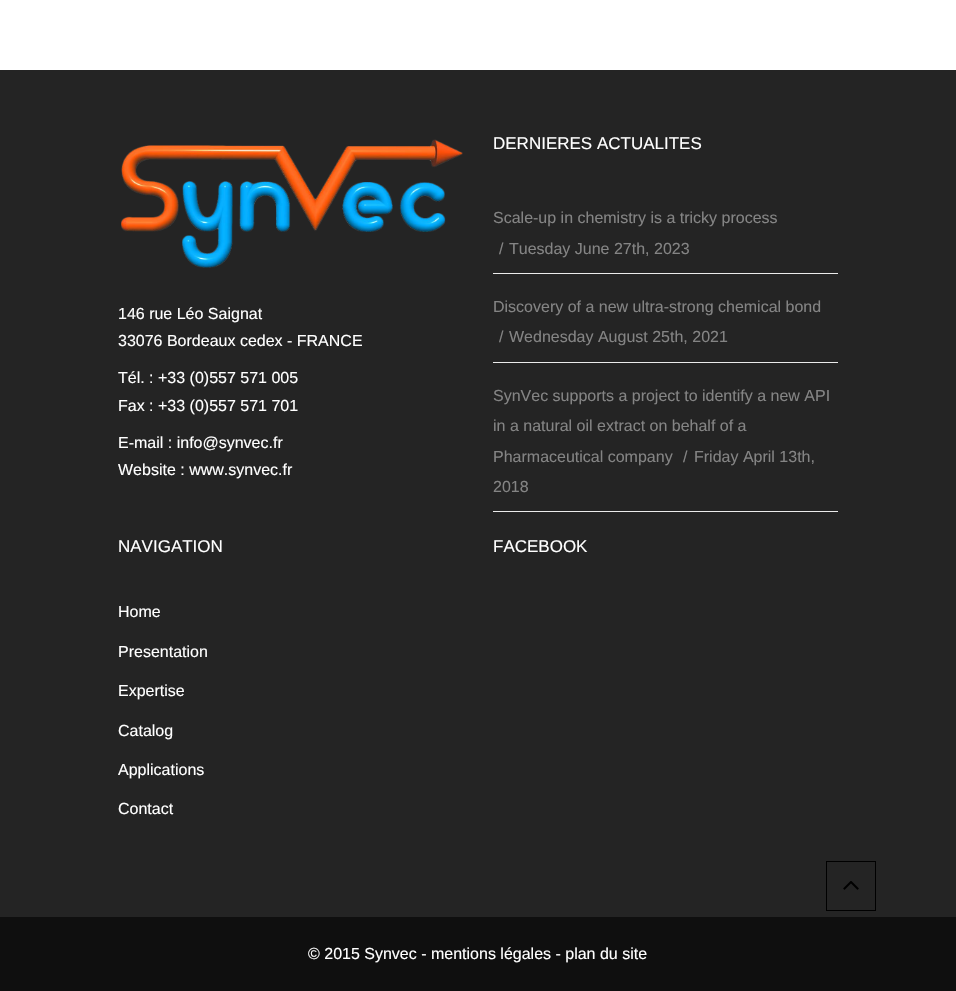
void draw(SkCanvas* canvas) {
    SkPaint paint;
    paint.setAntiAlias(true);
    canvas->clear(0xFFFFFFFF);
    paint.setColor(0xFF242424);
    canvas->drawRect(SkRect::MakeXYWH(0, 70, 956, 847), paint);
    canvas->drawImageRect(SkImages::DeferredFromEncodedData(SkData::MakeFromFileName("img1.png")), SkRect::MakeXYWH(121, 139, 342, 129), SkSamplingOptions());
    SkFont font1(fontMgr->matchFamilyStyle("Liberation Sans", SkFontStyle::Normal()), 16);
    font1.setSubpixel(true);
    paint.setColor(0xFFFFFFFF);
    canvas->drawString("146 rue Léo Saignat", 118, 319, font1, paint);
    canvas->drawString("33076 Bordeaux cedex - FRANCE", 118, 346, font1, paint);
    canvas->drawString("Tél. : +33 (0)557 571 005", 118, 383, font1, paint);
    canvas->drawString("Fax : +33 (0)557 571 701", 118, 411, font1, paint);
    canvas->drawString("E-mail : info@synvec.fr", 118, 448, font1, paint);
    canvas->drawString("Website : www.synvec.fr", 118, 475, font1, paint);
    SkFont font2(fontMgr->matchFamilyStyle("Liberation Sans", SkFontStyle::Normal()), 17);
    font2.setSubpixel(true);
    canvas->drawString("DERNIERES ACTUALITES", 493, 149, font2, paint);
    paint.setColor(0xFFEBEBEB);
    canvas->drawRect(SkRect::MakeXYWH(493, 273, 345, 1), paint);
    paint.setColor(0xFF848484);
    canvas->drawString("Scale-up in chemistry is a tricky process", 493, 223, font1, paint);
    canvas->drawString("/", 499, 254, font1, paint);
    canvas->drawString("Tuesday June 27th, 2023", 509, 254, font1, paint);
    paint.setColor(0xFFEBEBEB);
    canvas->drawRect(SkRect::MakeXYWH(493, 362, 345, 1), paint);
    paint.setColor(0xFF848484);
    canvas->drawString("Discovery of a new ultra-strong chemical bond", 493, 312, font1, paint);
    canvas->drawString("/", 499, 342, font1, paint);
    canvas->drawString("Wednesday August 25th, 2021", 509, 342, font1, paint);
    paint.setColor(0xFFEBEBEB);
    canvas->drawRect(SkRect::MakeXYWH(493, 511, 345, 1), paint);
    paint.setColor(0xFF848484);
    canvas->drawString("SynVec supports a project to identify a new API", 493, 401, font1, paint);
    canvas->drawString("in a natural oil extract on behalf of a", 493, 431, font1, paint);
    canvas->drawString("Pharmaceutical company", 493, 462, font1, paint);
    canvas->drawString("/", 683, 462, font1, paint);
    canvas->drawString("Friday April 13th,", 694, 462, font1, paint);
    canvas->drawString("2018", 493, 492, font1, paint);
    paint.setColor(0xFFFFFFFF);
    canvas->drawString("NAVIGATION", 118, 552, font2, paint);
    canvas->drawString("Home", 118, 617, font1, paint);
    canvas->drawString("Presentation", 118, 657, font1, paint);
    canvas->drawString("Expertise", 118, 696, font1, paint);
    canvas->drawString("Catalog", 118, 736, font1, paint);
    canvas->drawString("Applications", 118, 775, font1, paint);
    canvas->drawString("Contact", 118, 814, font1, paint);
    canvas->drawString("FACEBOOK", 493, 552, font2, paint);
    paint.setColor(0xFF0F0F0F);
    canvas->drawRect(SkRect::MakeXYWH(0, 917, 956, 74), paint);
    paint.setColor(0xFFFFFFFF);
    canvas->drawString("© 2015 Synvec - mentions légales - plan du site", 308, 959, font1, paint);
    paint.setStyle(SkPaint::kStroke_Style);
    paint.setStrokeWidth(1);
    paint.setColor(0xFF000000);
    canvas->drawRect(SkRect::MakeXYWH(826.5f, 861.5f, 49, 49), paint);
    canvas->drawImageRect(SkImages::DeferredFromEncodedData(SkData::MakeFromFileName("img2.png")), SkRect::MakeXYWH(843, 881, 16, 9), SkSamplingOptions());
}
